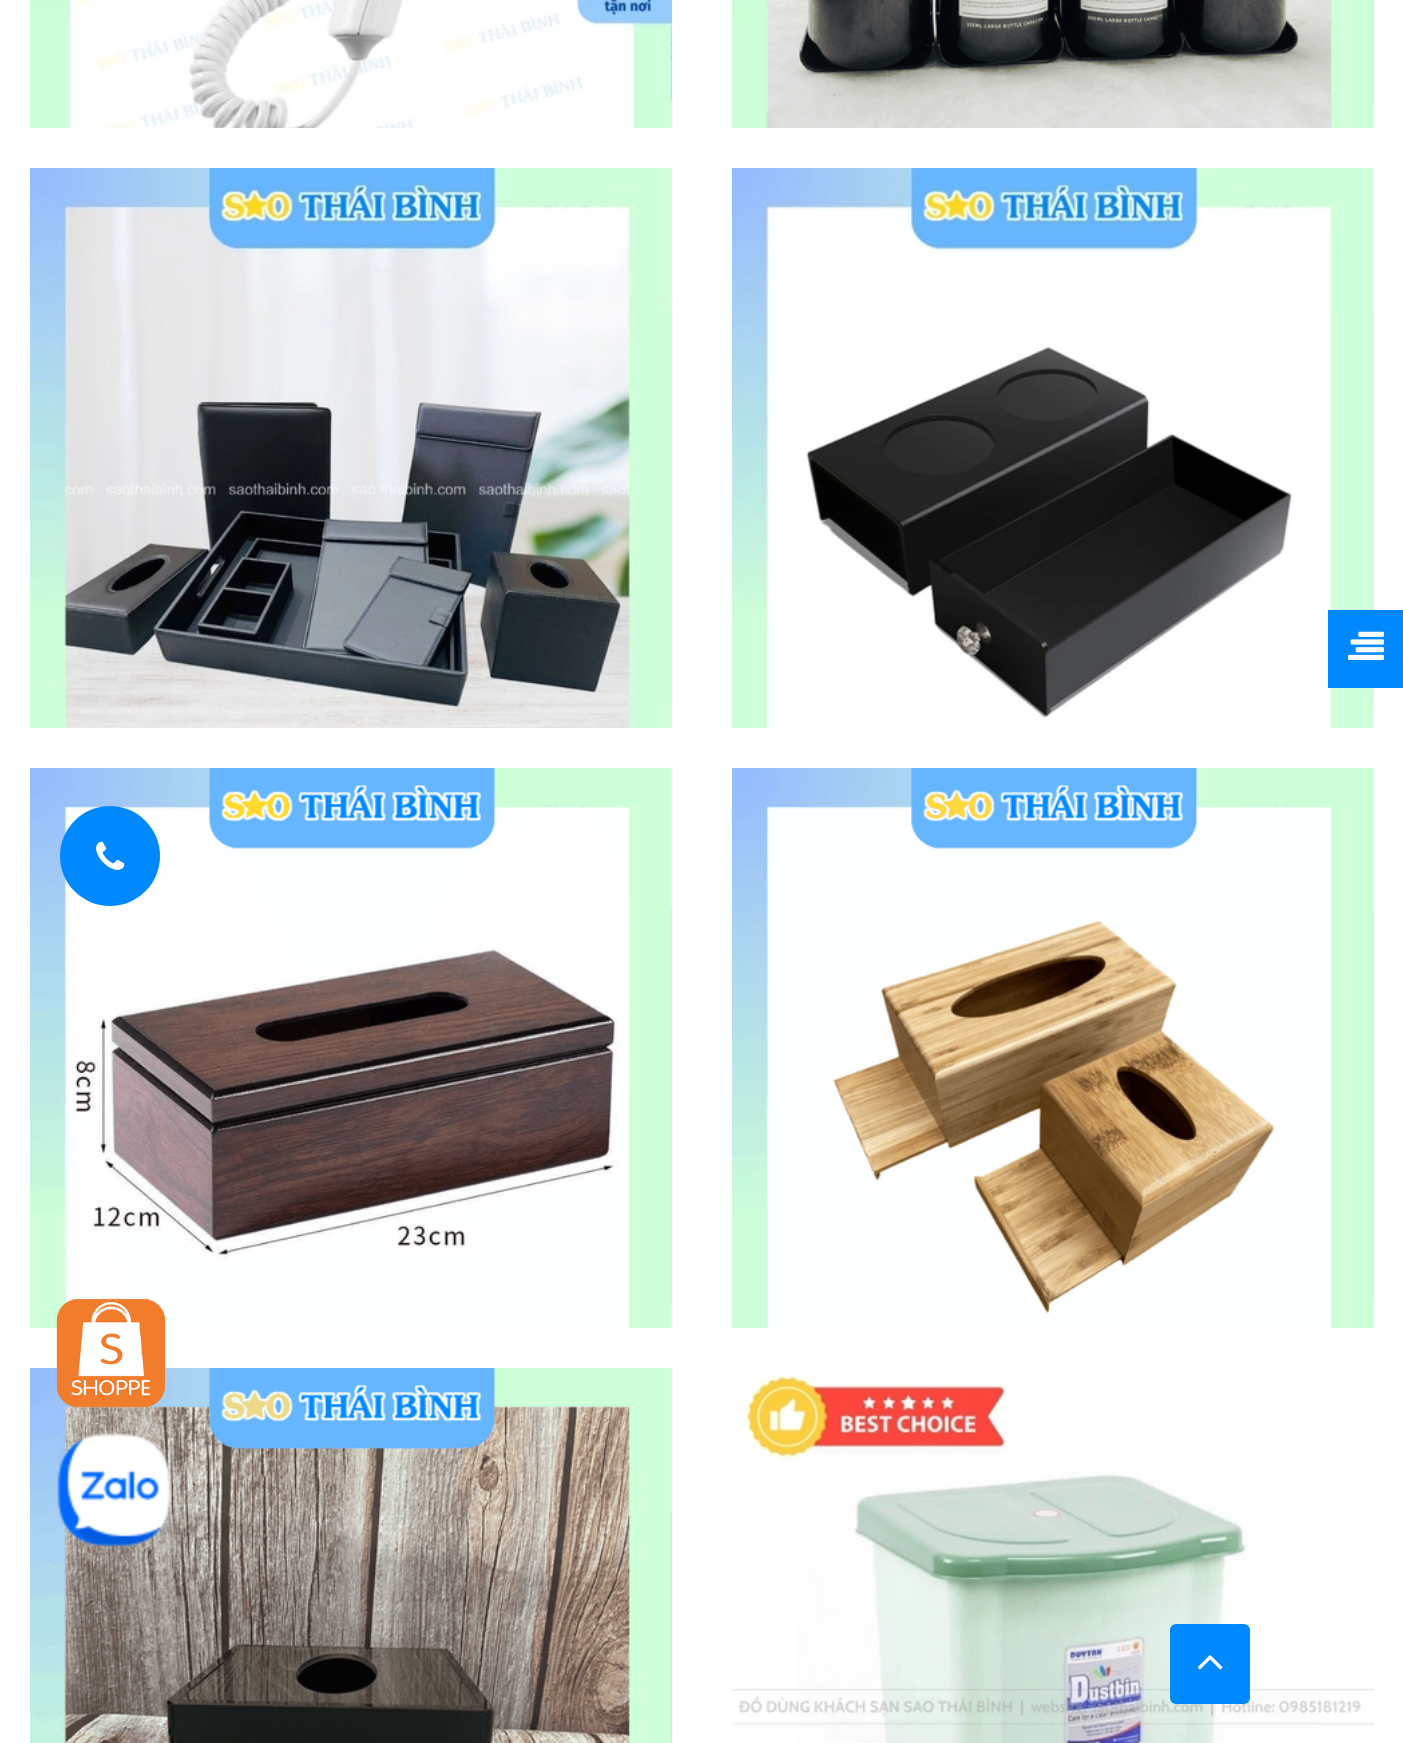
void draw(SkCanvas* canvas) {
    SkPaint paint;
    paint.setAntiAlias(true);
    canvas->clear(0xFFFFFFFF);
    canvas->drawImageRect(SkImages::DeferredFromEncodedData(SkData::MakeFromFileName("img1.png")), SkRect::MakeXYWH(30, 0, 642, 128), SkSamplingOptions());
    canvas->drawImageRect(SkImages::DeferredFromEncodedData(SkData::MakeFromFileName("img2.png")), SkRect::MakeXYWH(732, 0, 642, 128), SkSamplingOptions());
    canvas->drawImageRect(SkImages::DeferredFromEncodedData(SkData::MakeFromFileName("img3.png")), SkRect::MakeXYWH(30, 168, 642, 560), SkSamplingOptions());
    canvas->drawImageRect(SkImages::DeferredFromEncodedData(SkData::MakeFromFileName("img4.png")), SkRect::MakeXYWH(732, 168, 642, 560), SkSamplingOptions());
    canvas->drawImageRect(SkImages::DeferredFromEncodedData(SkData::MakeFromFileName("img5.png")), SkRect::MakeXYWH(30, 768, 642, 560), SkSamplingOptions());
    canvas->drawImageRect(SkImages::DeferredFromEncodedData(SkData::MakeFromFileName("img6.png")), SkRect::MakeXYWH(732, 768, 642, 560), SkSamplingOptions());
    canvas->drawImageRect(SkImages::DeferredFromEncodedData(SkData::MakeFromFileName("img7.png")), SkRect::MakeXYWH(30, 1368, 642, 375), SkSamplingOptions());
    canvas->drawImageRect(SkImages::DeferredFromEncodedData(SkData::MakeFromFileName("img8.png")), SkRect::MakeXYWH(732, 1374, 642, 369), SkSamplingOptions());
    paint.setColor(0xFF0089FF);
    canvas->drawRect(SkRect::MakeXYWH(1328, 610, 75, 78), paint);
    canvas->drawImageRect(SkImages::DeferredFromEncodedData(SkData::MakeFromFileName("img9.png")), SkRect::MakeXYWH(1348, 631, 36, 29), SkSamplingOptions());
    canvas->drawCircle(110, 856, 50, paint);
    canvas->drawImageRect(SkImages::DeferredFromEncodedData(SkData::MakeFromFileName("img10.png")), SkRect::MakeXYWH(96, 841, 29, 29), SkSamplingOptions());
    canvas->drawRoundRect(SkRect::MakeXYWH(1170, 1624, 80, 80), 6, 6, paint);
    canvas->drawImageRect(SkImages::DeferredFromEncodedData(SkData::MakeFromFileName("img11.png")), SkRect::MakeXYWH(1197, 1655, 26, 15), SkSamplingOptions());
    canvas->drawImageRect(SkImages::DeferredFromEncodedData(SkData::MakeFromFileName("img12.png")), SkRect::MakeXYWH(56, 1298, 110, 110), SkSamplingOptions());
    canvas->drawImageRect(SkImages::DeferredFromEncodedData(SkData::MakeFromFileName("img13.png")), SkRect::MakeXYWH(57, 1433, 115, 115), SkSamplingOptions());
}
